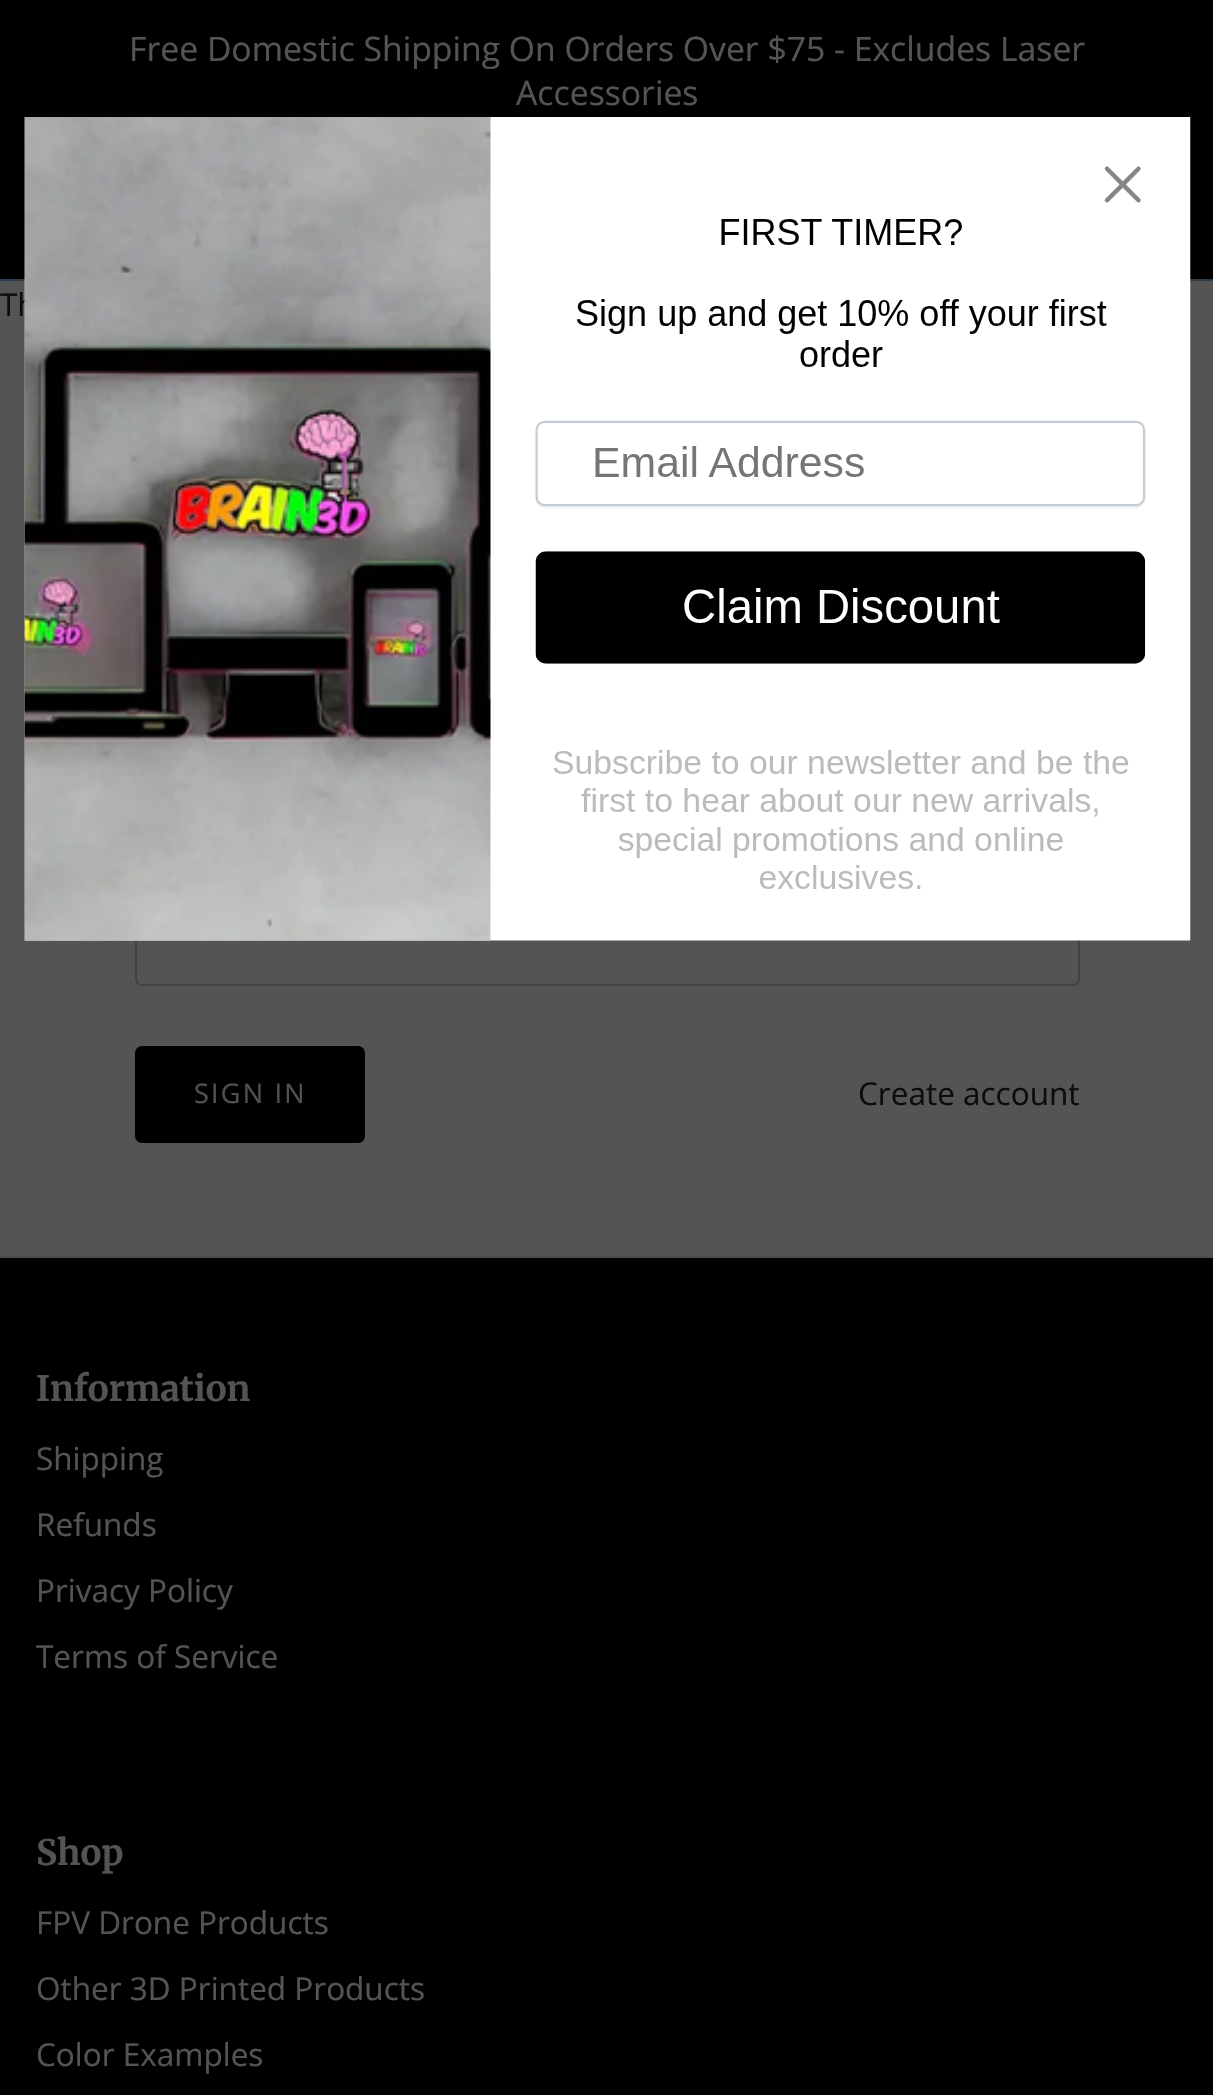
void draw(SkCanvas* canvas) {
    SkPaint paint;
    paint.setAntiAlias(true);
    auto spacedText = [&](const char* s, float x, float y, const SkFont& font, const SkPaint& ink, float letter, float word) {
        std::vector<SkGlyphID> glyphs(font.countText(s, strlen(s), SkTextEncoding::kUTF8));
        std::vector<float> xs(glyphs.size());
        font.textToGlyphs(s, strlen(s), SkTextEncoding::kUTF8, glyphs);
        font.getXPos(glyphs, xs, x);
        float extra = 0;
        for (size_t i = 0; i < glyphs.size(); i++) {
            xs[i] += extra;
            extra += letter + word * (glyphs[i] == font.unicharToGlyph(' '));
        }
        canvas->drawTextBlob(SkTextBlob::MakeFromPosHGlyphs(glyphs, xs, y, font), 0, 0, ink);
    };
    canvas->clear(0xFFFFFFFF);
    paint.setColor(0xFF000000);
    canvas->drawRect(SkRect::MakeXYWH(0, 0, 1213, 279), paint);
    SkFont font1(fontMgr->matchFamilyStyle("Open Sans", SkFontStyle::Normal()), 33.75f);
    font1.setSubpixel(true);
    paint.setColor(0xFFFFFFFF);
    canvas->drawString("Free Domestic Shipping On Orders Over $75 - Excludes Laser", 129, 61, font1, paint);
    canvas->drawString("Accessories", 516, 105, font1, paint);
    paint.setColor(0xFF7FB1E3);
    canvas->drawRect(SkRect::MakeXYWH(0, 279, 1213, 2), paint);
    SkFont font2(fontMgr->matchFamilyStyle("Open Sans", SkFontStyle::Normal()), 31.5f);
    font2.setSubpixel(true);
    paint.setColor(0xFF202223);
    canvas->drawString("Th", 0, 316, font2, paint);
    paint.setStyle(SkPaint::kStroke_Style);
    paint.setStrokeWidth(2);
    paint.setColor(0xFFC7C8C8);
    canvas->drawRoundRect(SkRect::MakeXYWH(136, 874, 943, 111), 6, 6, paint);
    paint.setStyle(SkPaint::kFill_Style);
    paint.setColor(0xFF000000);
    canvas->drawRoundRect(SkRect::MakeXYWH(136, 1047, 228, 95), 6, 6, paint);
    paint.setStyle(SkPaint::kStroke_Style);
    canvas->drawRoundRect(SkRect::MakeXYWH(136, 1047, 228, 95), 6, 6, paint);
    SkFont font3(fontMgr->matchFamilyStyle("Open Sans", SkFontStyle::Normal()), 27);
    font3.setSubpixel(true);
    paint.setStyle(SkPaint::kFill_Style);
    paint.setColor(0xFFF6F6F6);
    spacedText("SIGN IN", 194, 1103, font3, paint, 2.25f, 0);
    paint.setColor(0xFF202223);
    canvas->drawString("Create account", 858, 1105, font2, paint);
    paint.setColor(0xFF000000);
    canvas->drawRect(SkRect::MakeXYWH(0, 1258, 1213, 837), paint);
    paint.setColor(0xFFEEEEEE);
    canvas->drawRect(SkRect::MakeXYWH(0, 1256, 1213, 2), paint);
    SkFont font4(fontMgr->matchFamilyStyle("Merriweather", SkFontStyle::Bold()), 35);
    font4.setSubpixel(true);
    paint.setColor(0xFFFFFFFF);
    canvas->drawString("Information", 36, 1401, font4, paint);
    canvas->drawString("Shipping", 36, 1470, font2, paint);
    canvas->drawString("Refunds", 36, 1536, font2, paint);
    canvas->drawString("Privacy Policy", 36, 1602, font2, paint);
    canvas->drawString("Terms of Service", 36, 1668, font2, paint);
    canvas->drawString("Shop", 36, 1865, font4, paint);
    canvas->drawString("FPV Drone Products", 36, 1934, font2, paint);
    canvas->drawString("Other 3D Printed Products", 36, 2000, font2, paint);
    canvas->drawString("Color Examples", 36, 2066, font2, paint);
    canvas->drawImageRect(SkImages::DeferredFromEncodedData(SkData::MakeFromFileName("img1.png")), SkRect::MakeXYWH(0, 35, 1213, 2039), SkSamplingOptions());
}
